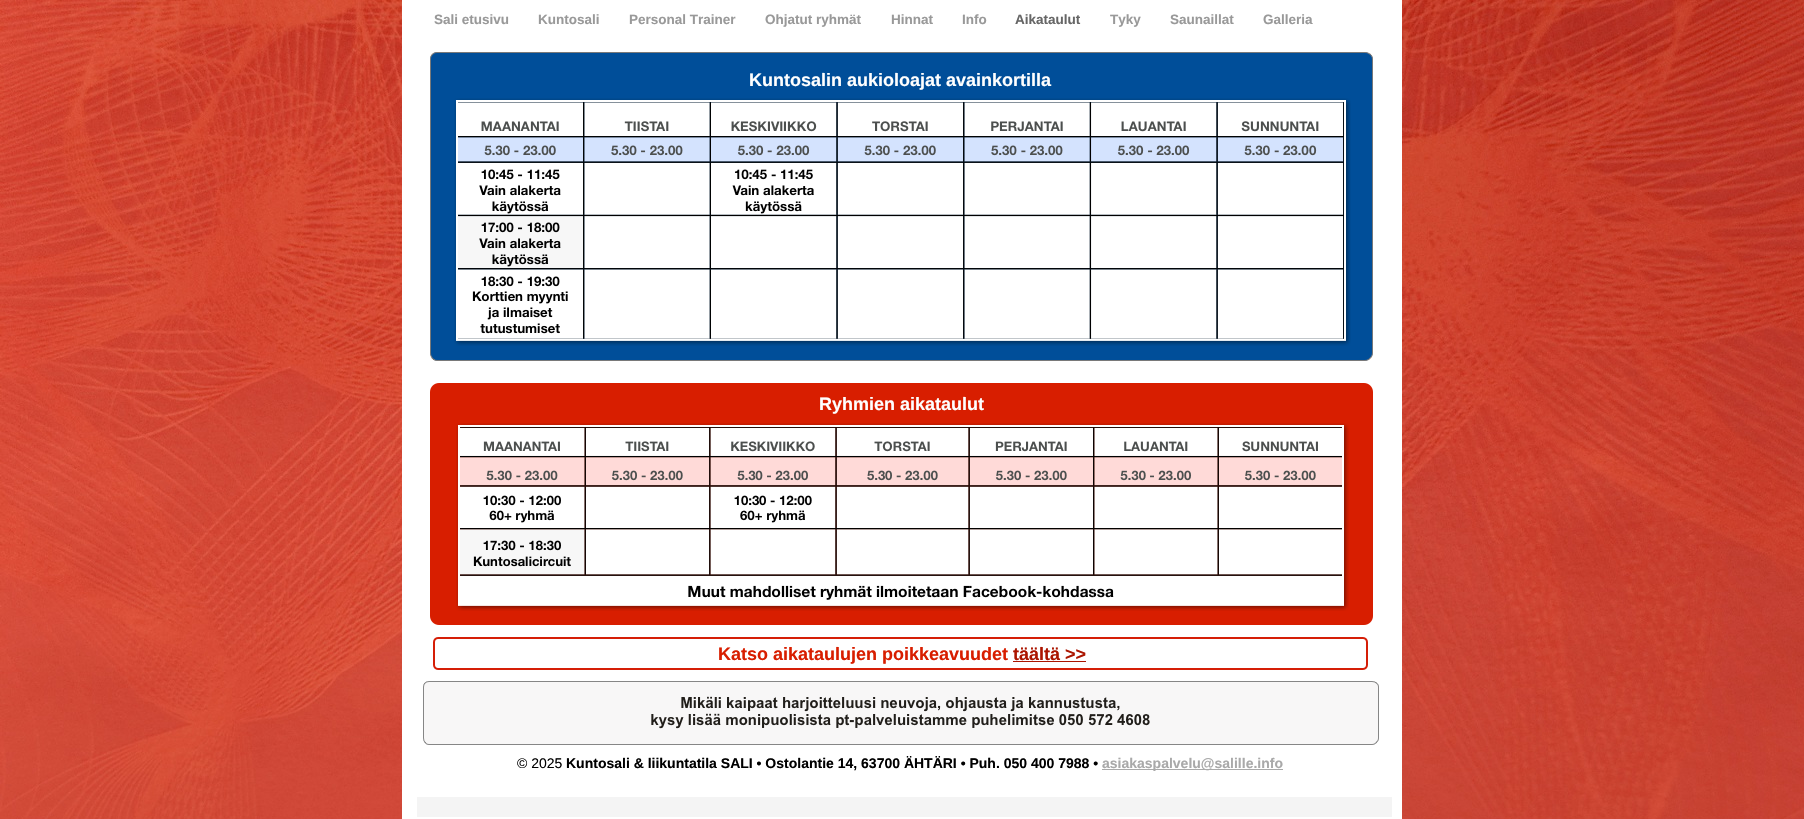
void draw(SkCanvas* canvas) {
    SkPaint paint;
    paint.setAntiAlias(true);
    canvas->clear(0xFFFFFFFF);
    canvas->drawImageRect(SkImages::DeferredFromEncodedData(SkData::MakeFromFileName("img1.png")), SkRect::MakeXYWH(0, 0, 1804, 819), SkSamplingOptions());
    paint.setColor(0xFFFFFFFF);
    canvas->drawRect(SkRect::MakeXYWH(402, 0, 1000, 819), paint);
    SkFont font1(fontMgr->matchFamilyStyle("Liberation Sans", SkFontStyle::Bold()), 13.5f);
    font1.setSubpixel(true);
    paint.setColor(0xFF999999);
    canvas->drawString("Sali etusivu", 434, 24, font1, paint);
    canvas->drawString("Kuntosali", 538, 24, font1, paint);
    canvas->drawString("Personal Trainer", 629, 24, font1, paint);
    canvas->drawString("Ohjatut ryhmät", 765, 24, font1, paint);
    canvas->drawString("Hinnat", 891, 24, font1, paint);
    canvas->drawString("Info", 962, 24, font1, paint);
    paint.setColor(0xFF666666);
    canvas->drawString("Aikataulut", 1015, 24, font1, paint);
    paint.setColor(0xFF999999);
    canvas->drawString("Tyky", 1110, 24, font1, paint);
    canvas->drawString("Saunaillat", 1170, 24, font1, paint);
    canvas->drawString("Galleria", 1263, 24, font1, paint);
    canvas->drawImageRect(SkImages::DeferredFromEncodedData(SkData::MakeFromFileName("img2.png")), SkRect::MakeXYWH(430, 52, 943, 309), SkSamplingOptions());
    SkFont font2(fontMgr->matchFamilyStyle("Liberation Sans", SkFontStyle::Bold()), 18);
    font2.setSubpixel(true);
    paint.setColor(0xFFFFFFFF);
    canvas->drawString("Kuntosalin aukioloajat avainkortilla", 749, 86, font2, paint);
    canvas->drawImageRect(SkImages::DeferredFromEncodedData(SkData::MakeFromFileName("img3.png")), SkRect::MakeXYWH(454, 98, 897, 248), SkSamplingOptions());
    canvas->drawImageRect(SkImages::DeferredFromEncodedData(SkData::MakeFromFileName("img4.png")), SkRect::MakeXYWH(430, 383, 943, 242), SkSamplingOptions());
    canvas->drawString("Ryhmien aikataulut", 819, 410, font2, paint);
    canvas->drawImageRect(SkImages::DeferredFromEncodedData(SkData::MakeFromFileName("img5.png")), SkRect::MakeXYWH(456, 423, 893, 188), SkSamplingOptions());
    canvas->drawImageRect(SkImages::DeferredFromEncodedData(SkData::MakeFromFileName("img6.png")), SkRect::MakeXYWH(433, 637, 935, 33), SkSamplingOptions());
    paint.setColor(0xFFD81E00);
    canvas->drawString("Katso aikataulujen poikkeavuudet", 718, 660, font2, paint);
    paint.setColor(0xFFAB1500);
    canvas->drawString("täältä >>", 1013, 660, font2, paint);
    canvas->drawRect(SkRect::MakeXYWH(1013, 661, 73, 1), paint);
    canvas->drawImageRect(SkImages::DeferredFromEncodedData(SkData::MakeFromFileName("img7.png")), SkRect::MakeXYWH(423, 681, 956, 64), SkSamplingOptions());
    SkFont font3(fontMgr->matchFamilyStyle("Liberation Sans", SkFontStyle::Normal()), 14);
    font3.setSubpixel(true);
    paint.setColor(0xFF000000);
    canvas->drawString("© 2025", 517, 768, font3, paint);
    SkFont font4(fontMgr->matchFamilyStyle("Liberation Sans", SkFontStyle::Bold()), 14);
    font4.setSubpixel(true);
    canvas->drawString("Kuntosali & liikuntatila SALI • Ostolantie 14, 63700 ÄHTÄRI • Puh. 050 400 7988 •", 566, 768, font4, paint);
    paint.setColor(0xFFA9A9A9);
    canvas->drawRect(SkRect::MakeXYWH(1102, 769, 181, 1), paint);
    canvas->drawString("asiakaspalvelu@salille.info", 1102, 768, font4, paint);
    paint.setColor(0xFFF4F4F4);
    canvas->drawRect(SkRect::MakeXYWH(417, 797, 975, 20), paint);
}
